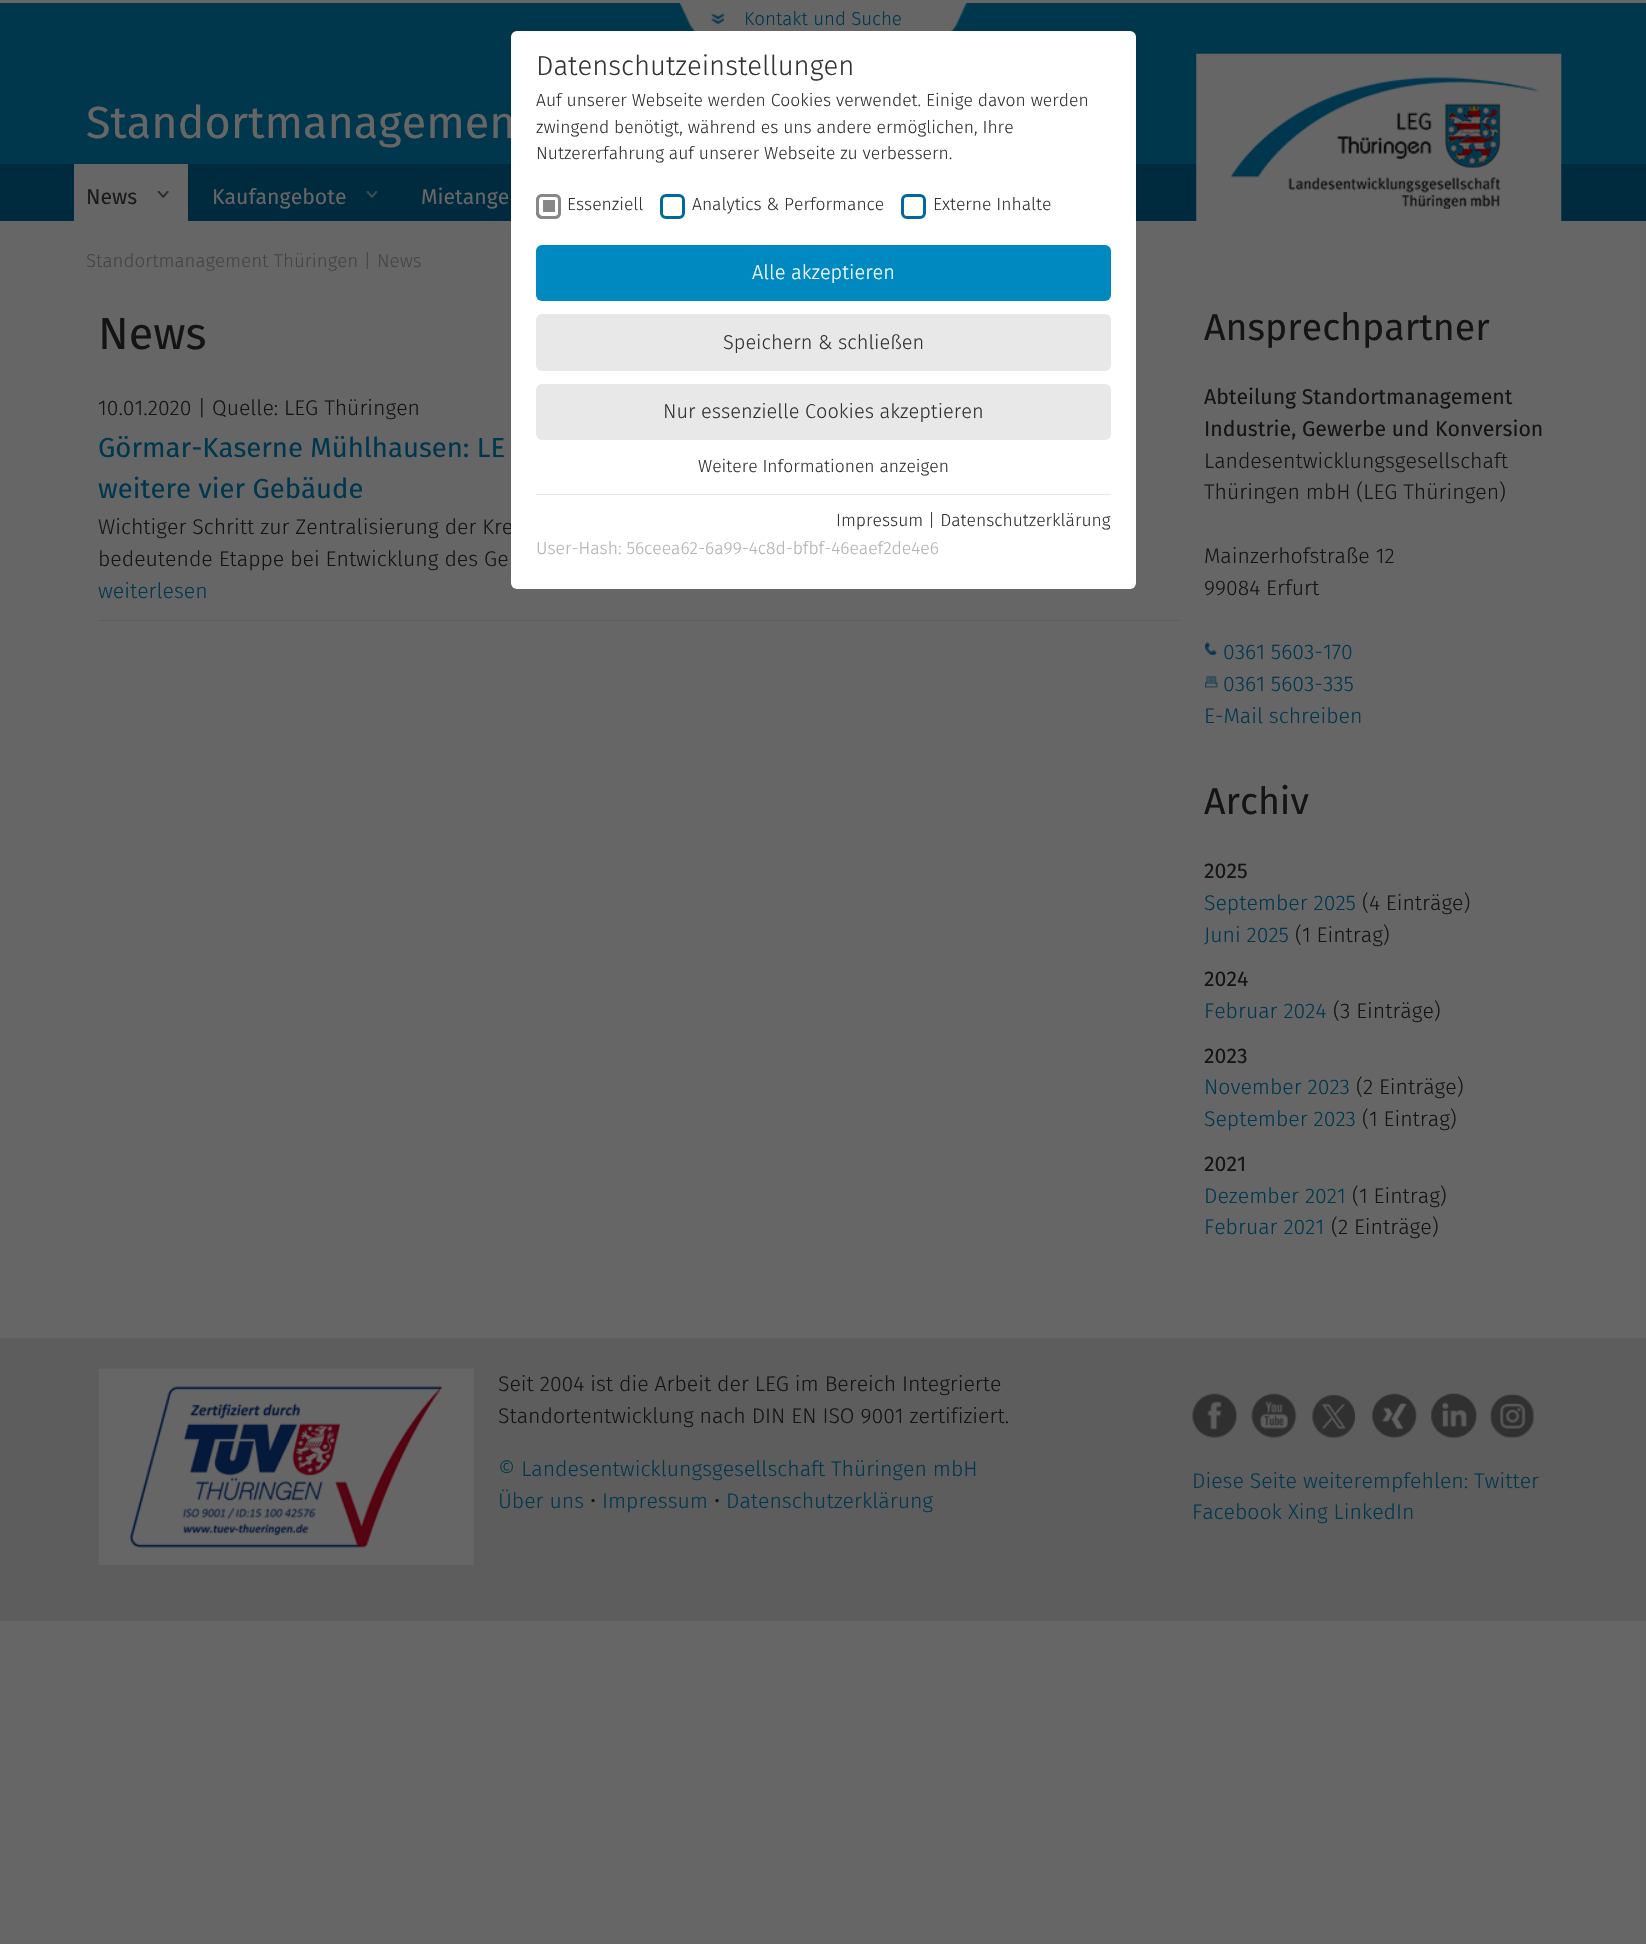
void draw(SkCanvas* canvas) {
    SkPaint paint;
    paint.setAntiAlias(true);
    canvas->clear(0xFF666666);
    paint.setColor(0xFF00374D);
    canvas->drawRect(SkRect::MakeXYWH(0, 3, 1646, 161), paint);
    canvas->drawImageRect(SkImages::DeferredFromEncodedData(SkData::MakeFromFileName("img1.png")), SkRect::MakeXYWH(680, 3, 288, 28), SkSamplingOptions());
    canvas->drawImageRect(SkImages::DeferredFromEncodedData(SkData::MakeFromFileName("img2.png")), SkRect::MakeXYWH(711, 13, 13, 11), SkSamplingOptions());
    SkFont font1(fontMgr->matchFamilyStyle("Fira Sans", SkFontStyle(300, SkFontStyle::kNormal_Width, SkFontStyle::kUpright_Slant)), 18.75f);
    font1.setSubpixel(true);
    canvas->drawString("Kontakt und Suche", 744, 25, font1, paint);
    SkFont font2(fontMgr->matchFamilyStyle("Fira Sans", SkFontStyle::Normal()), 45);
    font2.setSubpixel(true);
    paint.setColor(0xFF666666);
    canvas->drawString("Standortmanagemen", 86, 138, font2, paint);
    paint.setColor(0xFF002A3E);
    canvas->drawRect(SkRect::MakeXYWH(0, 164, 1646, 57), paint);
    canvas->drawImageRect(SkImages::DeferredFromEncodedData(SkData::MakeFromFileName("img3.png")), SkRect::MakeXYWH(1196, 53, 366, 168), SkSamplingOptions());
    paint.setColor(0xFF666666);
    canvas->drawRect(SkRect::MakeXYWH(74, 164, 114, 57), paint);
    SkFont font3(fontMgr->matchFamilyStyle("Fira Sans", SkFontStyle::Normal()), 21.25f);
    font3.setSubpixel(true);
    paint.setColor(0xFF1B1B1B);
    canvas->drawString("News", 86, 204, font3, paint);
    canvas->drawImageRect(SkImages::DeferredFromEncodedData(SkData::MakeFromFileName("img4.png")), SkRect::MakeXYWH(157, 191, 12, 7), SkSamplingOptions());
    paint.setColor(0xFF666666);
    canvas->drawString("Kaufangebote", 212, 204, font3, paint);
    canvas->drawImageRect(SkImages::DeferredFromEncodedData(SkData::MakeFromFileName("img5.png")), SkRect::MakeXYWH(366, 191, 12, 7), SkSamplingOptions());
    canvas->drawString("Mietange", 421, 204, font3, paint);
    paint.setColor(0xFF444444);
    canvas->drawString("Standortmanagement Thüringen |", 86, 267, font1, paint);
    canvas->drawString("News", 377, 267, font1, paint);
    paint.setColor(0xFF141414);
    canvas->drawString("News", 98, 349, font2, paint);
    paint.setColor(0xFF5D5D5D);
    canvas->drawRect(SkRect::MakeXYWH(99, 620, 1081, 1), paint);
    SkFont font4(fontMgr->matchFamilyStyle("Fira Sans", SkFontStyle(300, SkFontStyle::kNormal_Width, SkFontStyle::kUpright_Slant)), 21.25f);
    font4.setSubpixel(true);
    paint.setColor(0xFF141414);
    canvas->drawString("10.01.2020 | Quelle: LEG Thüringen", 98, 415, font4, paint);
    SkFont font5(fontMgr->matchFamilyStyle("Fira Sans", SkFontStyle::Normal()), 27.5f);
    font5.setSubpixel(true);
    paint.setColor(0xFF00374D);
    canvas->drawString("Görmar-Kaserne Mühlhausen: LE", 98, 457, font5, paint);
    canvas->drawString("weitere vier Gebäude", 98, 498, font5, paint);
    paint.setColor(0xFF141414);
    canvas->drawString("Wichtiger Schritt zur Zentralisierung der Kre", 98, 534, font4, paint);
    canvas->drawString("bedeutende Etappe bei Entwicklung des Ge", 98, 566, font4, paint);
    paint.setColor(0xFF00374D);
    canvas->drawString("weiterlesen", 98, 598, font4, paint);
    SkFont font6(fontMgr->matchFamilyStyle("Fira Sans", SkFontStyle::Normal()), 37.5f);
    font6.setSubpixel(true);
    paint.setColor(0xFF141414);
    canvas->drawString("Ansprechpartner", 1204, 340, font6, paint);
    canvas->drawString("Abteilung Standortmanagement", 1204, 404, font3, paint);
    canvas->drawString("Industrie, Gewerbe und Konversion", 1204, 436, font3, paint);
    canvas->drawString("Landesentwicklungsgesellschaft", 1204, 468, font4, paint);
    canvas->drawString("Thüringen mbH (LEG Thüringen)", 1204, 499, font4, paint);
    canvas->drawString("Mainzerhofstraße 12", 1204, 563, font4, paint);
    canvas->drawString("99084 Erfurt", 1204, 595, font4, paint);
    canvas->drawImageRect(SkImages::DeferredFromEncodedData(SkData::MakeFromFileName("img6.png")), SkRect::MakeXYWH(1205, 642, 12, 13), SkSamplingOptions());
    paint.setColor(0xFF00374D);
    canvas->drawString("0361 5603-170", 1223, 659, font4, paint);
    canvas->drawImageRect(SkImages::DeferredFromEncodedData(SkData::MakeFromFileName("img7.png")), SkRect::MakeXYWH(1205, 676, 13, 12), SkSamplingOptions());
    canvas->drawString("0361 5603-335", 1223, 691, font4, paint);
    canvas->drawString("E-Mail schreiben", 1204, 723, font4, paint);
    paint.setColor(0xFF141414);
    canvas->drawString("Archiv", 1204, 814, font6, paint);
    canvas->drawString("2025", 1204, 878, font3, paint);
    paint.setColor(0xFF00374D);
    canvas->drawString("September 2025", 1204, 910, font4, paint);
    paint.setColor(0xFF141414);
    canvas->drawString("(4 Einträge)", 1362, 910, font4, paint);
    paint.setColor(0xFF00374D);
    canvas->drawString("Juni 2025", 1204, 942, font4, paint);
    paint.setColor(0xFF141414);
    canvas->drawString("(1 Eintrag)", 1295, 942, font4, paint);
    canvas->drawString("2024", 1204, 986, font3, paint);
    paint.setColor(0xFF00374D);
    canvas->drawString("Februar 2024", 1204, 1018, font4, paint);
    paint.setColor(0xFF141414);
    canvas->drawString("(3 Einträge)", 1333, 1018, font4, paint);
    canvas->drawString("2023", 1204, 1063, font3, paint);
    paint.setColor(0xFF00374D);
    canvas->drawString("November 2023", 1204, 1094, font4, paint);
    paint.setColor(0xFF141414);
    canvas->drawString("(2 Einträge)", 1356, 1094, font4, paint);
    paint.setColor(0xFF00374D);
    canvas->drawString("September 2023", 1204, 1126, font4, paint);
    paint.setColor(0xFF141414);
    canvas->drawString("(1 Eintrag)", 1362, 1126, font4, paint);
    canvas->drawString("2021", 1204, 1171, font3, paint);
    paint.setColor(0xFF00374D);
    canvas->drawString("Dezember 2021", 1204, 1203, font4, paint);
    paint.setColor(0xFF141414);
    canvas->drawString("(1 Eintrag)", 1352, 1203, font4, paint);
    paint.setColor(0xFF00374D);
    canvas->drawString("Februar 2021", 1204, 1234, font4, paint);
    paint.setColor(0xFF141414);
    canvas->drawString("(2 Einträge)", 1331, 1234, font4, paint);
    paint.setColor(0xFF5D5D5D);
    canvas->drawRect(SkRect::MakeXYWH(0, 1338, 1646, 283), paint);
    canvas->drawImageRect(SkImages::DeferredFromEncodedData(SkData::MakeFromFileName("img8.png")), SkRect::MakeXYWH(98, 1368, 376, 197), SkSamplingOptions());
    paint.setColor(0xFF141414);
    canvas->drawString("Seit 2004 ist die Arbeit der LEG im Bereich Integrierte", 498, 1391, font4, paint);
    canvas->drawString("Standortentwicklung nach DIN EN ISO 9001 zertifiziert.", 498, 1423, font4, paint);
    paint.setColor(0xFF00374D);
    canvas->drawString("© Landesentwicklungsgesellschaft Thüringen mbH", 498, 1476, font4, paint);
    canvas->drawString("Über uns", 498, 1508, font4, paint);
    paint.setColor(0xFF141414);
    canvas->drawString("•", 590, 1508, font4, paint);
    paint.setColor(0xFF00374D);
    canvas->drawString("Impressum", 602, 1508, font4, paint);
    paint.setColor(0xFF141414);
    canvas->drawString("•", 714, 1508, font4, paint);
    paint.setColor(0xFF00374D);
    canvas->drawString("Datenschutzerklärung", 726, 1508, font4, paint);
    canvas->drawImageRect(SkImages::DeferredFromEncodedData(SkData::MakeFromFileName("img9.png")), SkRect::MakeXYWH(1192, 1393, 46, 45), SkSamplingOptions());
    canvas->drawImageRect(SkImages::DeferredFromEncodedData(SkData::MakeFromFileName("img10.png")), SkRect::MakeXYWH(1251, 1393, 46, 45), SkSamplingOptions());
    canvas->drawImageRect(SkImages::DeferredFromEncodedData(SkData::MakeFromFileName("img11.png")), SkRect::MakeXYWH(1312, 1394, 43, 44), SkSamplingOptions());
    canvas->drawImageRect(SkImages::DeferredFromEncodedData(SkData::MakeFromFileName("img12.png")), SkRect::MakeXYWH(1371, 1393, 46, 45), SkSamplingOptions());
    canvas->drawImageRect(SkImages::DeferredFromEncodedData(SkData::MakeFromFileName("img13.png")), SkRect::MakeXYWH(1431, 1393, 46, 45), SkSamplingOptions());
    canvas->drawImageRect(SkImages::DeferredFromEncodedData(SkData::MakeFromFileName("img14.png")), SkRect::MakeXYWH(1490, 1393, 45, 45), SkSamplingOptions());
    canvas->drawString("Diese Seite weiterempfehlen: Twitter", 1192, 1488, font4, paint);
    canvas->drawString("Facebook Xing LinkedIn", 1192, 1519, font4, paint);
    paint.setColor(0xFFFFFFFF);
    canvas->drawRoundRect(SkRect::MakeXYWH(511, 31, 625, 558), 6, 6, paint);
    SkFont font7(fontMgr->matchFamilyStyle("Fira Sans", SkFontStyle(300, SkFontStyle::kNormal_Width, SkFontStyle::kUpright_Slant)), 27.5f);
    font7.setSubpixel(true);
    paint.setColor(0xFF333333);
    canvas->drawString("Datenschutzeinstellungen", 536, 75, font7, paint);
    SkFont font8(fontMgr->matchFamilyStyle("Fira Sans", SkFontStyle(300, SkFontStyle::kNormal_Width, SkFontStyle::kUpright_Slant)), 17.5f);
    font8.setSubpixel(true);
    canvas->drawString("Auf unserer Webseite werden Cookies verwendet. Einige davon werden", 536, 106, font8, paint);
    canvas->drawString("zwingend benötigt, während es uns andere ermöglichen, Ihre", 536, 133, font8, paint);
    canvas->drawString("Nutzererfahrung auf unserer Webseite zu verbessern.", 536, 159, font8, paint);
    paint.setColor(0xFF888888);
    canvas->drawRoundRect(SkRect::MakeXYWH(536, 194, 25, 25), 6, 6, paint);
    paint.setStyle(SkPaint::kStroke_Style);
    paint.setStrokeWidth(4);
    paint.setColor(0xFFFFFFFF);
    canvas->drawRoundRect(SkRect::MakeXYWH(541, 198, 16, 16), 2, 2, paint);
    paint.setStrokeWidth(3);
    paint.setColor(0xFF888888);
    canvas->drawRoundRect(SkRect::MakeXYWH(537.5f, 195.5f, 22, 22), 4.5f, 4.5f, paint);
    paint.setStyle(SkPaint::kFill_Style);
    paint.setColor(0xFF333333);
    canvas->drawString("Essenziell", 567, 210, font8, paint);
    paint.setStyle(SkPaint::kStroke_Style);
    paint.setColor(0xFF00689B);
    canvas->drawRoundRect(SkRect::MakeXYWH(661.5f, 195.5f, 22, 22), 4.5f, 4.5f, paint);
    paint.setStyle(SkPaint::kFill_Style);
    paint.setColor(0xFF333333);
    canvas->drawString("Analytics & Performance", 692, 210, font8, paint);
    paint.setStyle(SkPaint::kStroke_Style);
    paint.setColor(0xFF00689B);
    canvas->drawRoundRect(SkRect::MakeXYWH(902.5f, 195.5f, 22, 22), 4.5f, 4.5f, paint);
    paint.setStyle(SkPaint::kFill_Style);
    paint.setColor(0xFF333333);
    canvas->drawString("Externe Inhalte", 933, 210, font8, paint);
    paint.setColor(0xFF0089C1);
    canvas->drawRoundRect(SkRect::MakeXYWH(536, 245, 575, 56), 6, 6, paint);
    SkFont font9(fontMgr->matchFamilyStyle("Fira Sans", SkFontStyle(300, SkFontStyle::kNormal_Width, SkFontStyle::kUpright_Slant)), 20);
    font9.setSubpixel(true);
    paint.setColor(0xFFFFFFFF);
    canvas->drawString("Alle akzeptieren", 752, 279, font9, paint);
    paint.setColor(0xFFE8E8E8);
    canvas->drawRoundRect(SkRect::MakeXYWH(536, 314, 575, 57), 6, 6, paint);
    paint.setColor(0xFF333333);
    canvas->drawString("Speichern & schließen", 723, 349, font9, paint);
    paint.setColor(0xFFE8E8E8);
    canvas->drawRoundRect(SkRect::MakeXYWH(536, 384, 575, 56), 6, 6, paint);
    paint.setColor(0xFF333333);
    canvas->drawString("Nur essenzielle Cookies akzeptieren", 663, 418, font9, paint);
    canvas->drawString("Weitere Informationen anzeigen", 698, 472, font8, paint);
    paint.setColor(0xFFE8E8E8);
    canvas->drawRect(SkRect::MakeXYWH(536, 494, 575, 1), paint);
    paint.setColor(0xFF333333);
    canvas->drawString("Impressum | Datenschutzerklärung", 836, 526, font8, paint);
    paint.setColor(0xFFB2B2B2);
    canvas->drawString("User-Hash: 56ceea62-6a99-4c8d-bfbf-46eaef2de4e6", 536, 554, font8, paint);
}
